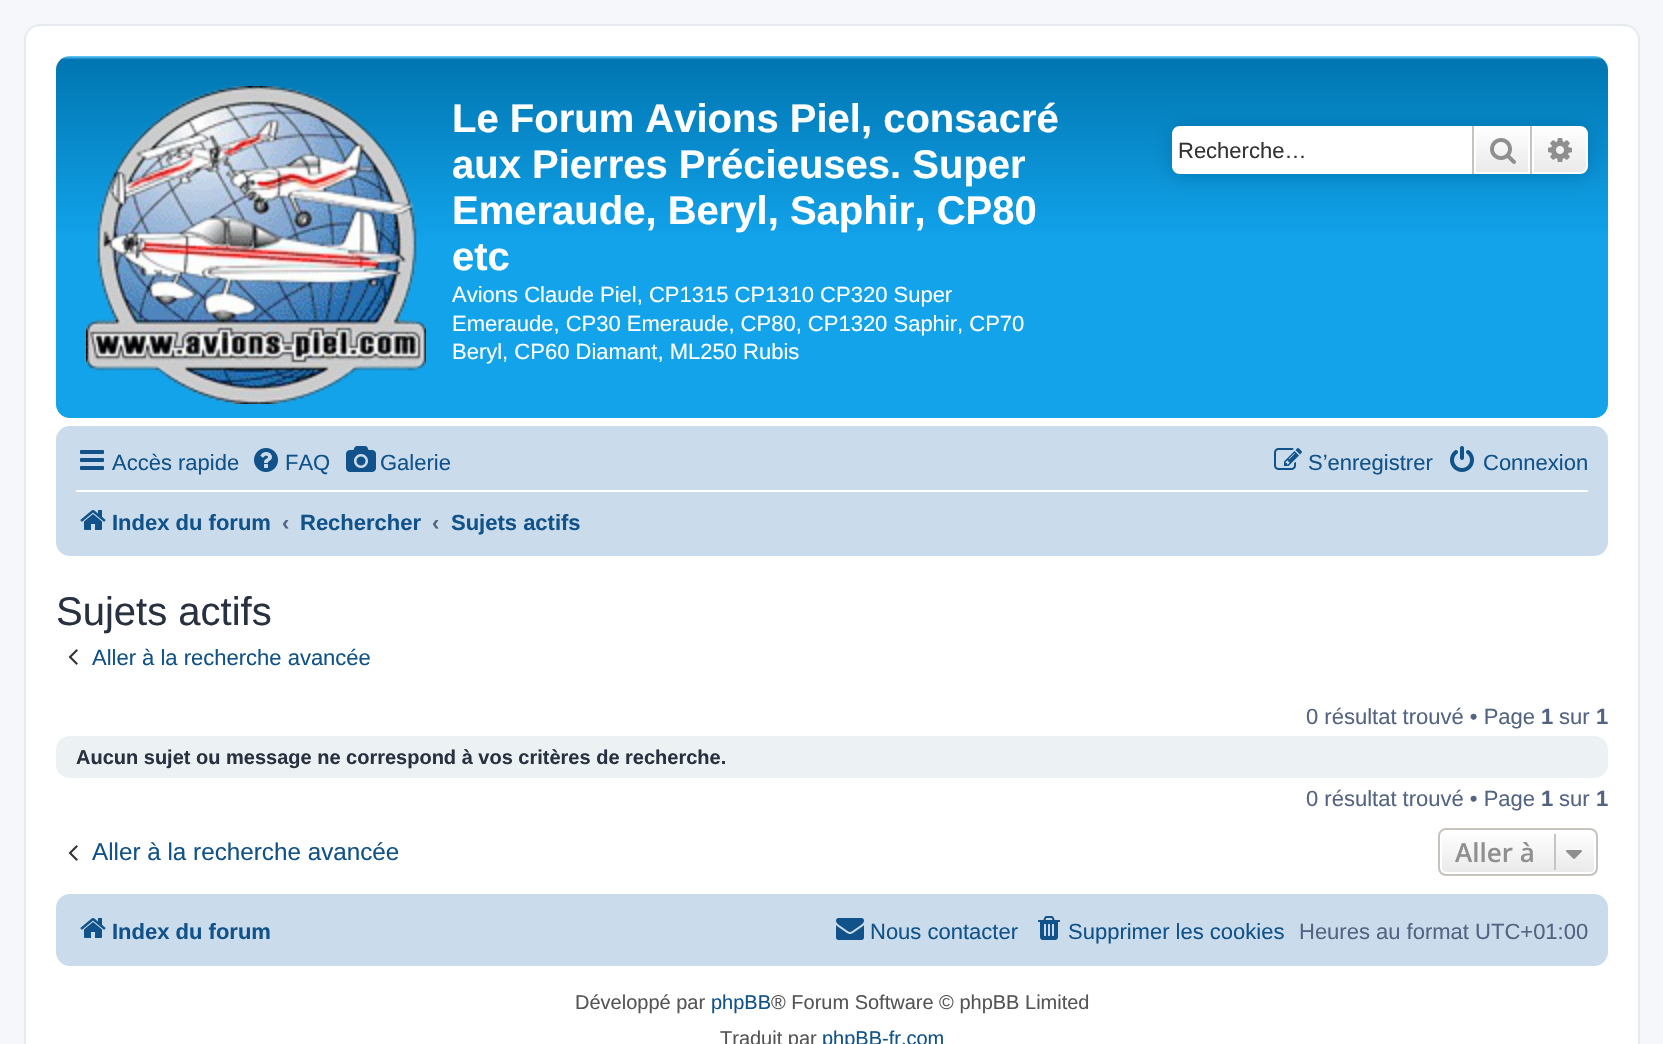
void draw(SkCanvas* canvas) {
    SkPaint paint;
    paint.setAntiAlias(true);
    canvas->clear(0xFFF5F7FA);
    paint.setColor(0xFFFFFFFF);
    canvas->drawRoundRect(SkRect::MakeXYWH(25, 25, 1614, 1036), 15, 15, paint);
    paint.setStyle(SkPaint::kStroke_Style);
    paint.setStrokeWidth(2);
    paint.setColor(0xFFE6E9ED);
    canvas->drawRoundRect(SkRect::MakeXYWH(25, 25, 1614, 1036), 15, 15, paint);
    paint.setStyle(SkPaint::kFill_Style);
    {
        const SkColor colors[] = {0xFF6ACEFF, 0xFF0076B1, 0xFF12A3EB, 0xFF12A3EB};
        const float stops[] = {0, 0.01f, 0.51f, 1};
        const SkPoint ends[] = {{832, 56}, {832, 418}};
        paint.setShader(SkGradientShader::MakeLinear(ends, colors, stops, 4, SkTileMode::kClamp));
        paint.setAlpha(255);
    }
    canvas->drawRoundRect(SkRect::MakeXYWH(56, 56, 1552, 362), 14, 14, paint);
    canvas->drawImageRect(SkImages::DeferredFromEncodedData(SkData::MakeFromFileName("img1.png")), SkRect::MakeXYWH(86, 86, 340, 318), SkSamplingOptions());
    SkFont font1(fontMgr->matchFamilyStyle("Liberation Sans", SkFontStyle::Bold()), 40);
    font1.setSubpixel(true);
    paint.setShader(nullptr);
    paint.setColor(0xFFFFFFFF);
    canvas->drawString("Le Forum Avions Piel, consacré", 452, 132, font1, paint);
    canvas->drawString("aux Pierres Précieuses. Super", 452, 178, font1, paint);
    canvas->drawString("Emeraude, Beryl, Saphir, CP80", 452, 224, font1, paint);
    canvas->drawString("etc", 452, 270, font1, paint);
    SkFont font2(fontMgr->matchFamilyStyle("Liberation Sans", SkFontStyle::Normal()), 22);
    font2.setSubpixel(true);
    canvas->drawString("Avions Claude Piel, CP1315 CP1310 CP320 Super", 452, 302, font2, paint);
    canvas->drawString("Emeraude, CP30 Emeraude, CP80, CP1320 Saphir, CP70", 452, 331, font2, paint);
    canvas->drawString("Beryl, CP60 Diamant, ML250 Rubis", 452, 359, font2, paint);
    paint.setColor(0xFF0075B0);
    paint.setMaskFilter(SkMaskFilter::MakeBlur(kNormal_SkBlurStyle, 10));
    canvas->drawRoundRect(SkRect::MakeXYWH(1172, 126, 416, 48), 8, 8, paint);
    paint.setMaskFilter(nullptr);
    paint.setColor(0xFFFFFFFF);
    canvas->drawPath(SkPathBuilder().moveTo(1180, 126).lineTo(1472, 126).lineTo(1472, 174).lineTo(1180, 174).cubicTo(1175.5f, 174, 1172, 170.5f, 1172, 166).lineTo(1172, 134).cubicTo(1172, 129.5f, 1175.5f, 126, 1180, 126).close().detach(), paint);
    paint.setColor(0xFF333333);
    canvas->drawString("Recherche…", 1178, 158, font2, paint);
    {
        const SkColor colors[] = {0xFFFFFFFF, 0xFFE9E9E9};
        const float stops[] = {0, 1};
        const SkPoint ends[] = {{1502, 126}, {1502, 174}};
        paint.setShader(SkGradientShader::MakeLinear(ends, colors, stops, 2, SkTileMode::kClamp));
        paint.setAlpha(255);
    }
    canvas->drawRect(SkRect::MakeXYWH(1476, 128, 52, 44), paint);
    paint.setStyle(SkPaint::kStroke_Style);
    paint.setShader(nullptr);
    paint.setColor(0xFFFFFFFF);
    canvas->drawRect(SkRect::MakeXYWH(1475, 127, 54, 46), paint);
    paint.setStyle(SkPaint::kFill_Style);
    paint.setColor(0xFFC7C3BF);
    canvas->drawRect(SkRect::MakeXYWH(1530, 126, 2, 48), paint);
    canvas->drawRect(SkRect::MakeXYWH(1472, 126, 2, 48), paint);
    canvas->drawImageRect(SkImages::DeferredFromEncodedData(SkData::MakeFromFileName("img2.png")), SkRect::MakeXYWH(1490, 138, 26, 26), SkSamplingOptions());
    {
        const SkColor colors[] = {0xFFFFFFFF, 0xFFE9E9E9};
        const float stops[] = {0, 1};
        const SkPoint ends[] = {{1560, 126}, {1560, 174}};
        paint.setShader(SkGradientShader::MakeLinear(ends, colors, stops, 2, SkTileMode::kClamp));
        paint.setAlpha(255);
    }
    canvas->drawPath(SkPathBuilder().moveTo(1533, 127).lineTo(1580, 127).cubicTo(1584, 127, 1587, 130, 1587, 134).lineTo(1587, 166).cubicTo(1587, 170, 1584, 173, 1580, 173).lineTo(1533, 173).close().detach(), paint);
    paint.setStyle(SkPaint::kStroke_Style);
    paint.setShader(nullptr);
    paint.setColor(0xFFFFFFFF);
    canvas->drawPath(SkPathBuilder().moveTo(1533, 127).lineTo(1580, 127).cubicTo(1584, 127, 1587, 130, 1587, 134).lineTo(1587, 166).cubicTo(1587, 170, 1584, 173, 1580, 173).lineTo(1533, 173).close().detach(), paint);
    canvas->drawImageRect(SkImages::DeferredFromEncodedData(SkData::MakeFromFileName("img3.png")), SkRect::MakeXYWH(1548, 138, 24, 24), SkSamplingOptions());
    paint.setStyle(SkPaint::kFill_Style);
    paint.setColor(0xFFCADCEB);
    canvas->drawRoundRect(SkRect::MakeXYWH(56, 426, 1552, 130), 14, 14, paint);
    canvas->drawImageRect(SkImages::DeferredFromEncodedData(SkData::MakeFromFileName("img4.png")), SkRect::MakeXYWH(80, 450, 24, 20), SkSamplingOptions());
    paint.setColor(0xFF105289);
    canvas->drawString("Accès rapide", 112, 470, font2, paint);
    canvas->drawImageRect(SkImages::DeferredFromEncodedData(SkData::MakeFromFileName("img5.png")), SkRect::MakeXYWH(254, 448, 24, 24), SkSamplingOptions());
    canvas->drawString("FAQ", 285, 470, font2, paint);
    canvas->drawImageRect(SkImages::DeferredFromEncodedData(SkData::MakeFromFileName("img6.png")), SkRect::MakeXYWH(346, 446, 30, 26), SkSamplingOptions());
    canvas->drawString("Galerie", 380, 470, font2, paint);
    canvas->drawImageRect(SkImages::DeferredFromEncodedData(SkData::MakeFromFileName("img7.png")), SkRect::MakeXYWH(1274, 448, 28, 22), SkSamplingOptions());
    canvas->drawString("S’enregistrer", 1308, 470, font2, paint);
    canvas->drawImageRect(SkImages::DeferredFromEncodedData(SkData::MakeFromFileName("img8.png")), SkRect::MakeXYWH(1450, 446, 24, 26), SkSamplingOptions());
    canvas->drawString("Connexion", 1483, 470, font2, paint);
    paint.setColor(0xFFFFFFFF);
    canvas->drawRect(SkRect::MakeXYWH(76, 490, 1512, 2), paint);
    canvas->drawImageRect(SkImages::DeferredFromEncodedData(SkData::MakeFromFileName("img9.png")), SkRect::MakeXYWH(80, 510, 26, 20), SkSamplingOptions());
    SkFont font3(fontMgr->matchFamilyStyle("Liberation Sans", SkFontStyle::Bold()), 22);
    font3.setSubpixel(true);
    paint.setColor(0xFF105289);
    canvas->drawString("Index du forum", 112, 530, font3, paint);
    paint.setColor(0xFF536482);
    canvas->drawString("‹", 282, 530, font3, paint);
    paint.setColor(0xFF105289);
    canvas->drawString("Rechercher", 300, 530, font3, paint);
    paint.setColor(0xFF536482);
    canvas->drawString("‹", 432, 530, font3, paint);
    paint.setColor(0xFF105289);
    canvas->drawString("Sujets actifs", 451, 530, font3, paint);
    SkFont font4(fontMgr->matchFamilyStyle("Liberation Sans", SkFontStyle::Normal()), 40);
    font4.setSubpixel(true);
    paint.setColor(0xFF28313F);
    canvas->drawString("Sujets actifs", 56, 625, font4, paint);
    canvas->drawImageRect(SkImages::DeferredFromEncodedData(SkData::MakeFromFileName("img10.png")), SkRect::MakeXYWH(68, 649, 10, 16), SkSamplingOptions());
    paint.setColor(0xFF105289);
    canvas->drawString("Aller à la recherche avancée", 92, 665, font2, paint);
    paint.setColor(0xFF536482);
    canvas->drawString("0 résultat trouvé • Page", 1306, 724, font2, paint);
    canvas->drawString("1", 1541, 724, font3, paint);
    canvas->drawString("sur", 1559, 724, font2, paint);
    canvas->drawString("1", 1596, 724, font3, paint);
    paint.setColor(0xFFECF1F3);
    canvas->drawRoundRect(SkRect::MakeXYWH(56, 736, 1552, 42), 14, 14, paint);
    SkFont font5(fontMgr->matchFamilyStyle("Liberation Sans", SkFontStyle::Bold()), 20);
    font5.setSubpixel(true);
    paint.setColor(0xFF28313F);
    canvas->drawString("Aucun sujet ou message ne correspond à vos critères de recherche.", 76, 764, font5, paint);
    paint.setColor(0xFF536482);
    canvas->drawString("0 résultat trouvé • Page", 1306, 806, font2, paint);
    canvas->drawString("1", 1541, 806, font3, paint);
    canvas->drawString("sur", 1559, 806, font2, paint);
    canvas->drawString("1", 1596, 806, font3, paint);
    canvas->drawImageRect(SkImages::DeferredFromEncodedData(SkData::MakeFromFileName("img10.png")), SkRect::MakeXYWH(68, 845, 10, 16), SkSamplingOptions());
    SkFont font6(fontMgr->matchFamilyStyle("Liberation Sans", SkFontStyle::Normal()), 24.25f);
    font6.setSubpixel(true);
    paint.setColor(0xFF105289);
    canvas->drawString("Aller à la recherche avancée", 92, 860, font6, paint);
    canvas->save();
    canvas->clipPath(SkPathBuilder().moveTo(1446, 828).lineTo(1590, 828).cubicTo(1594.5f, 828, 1598, 831.5f, 1598, 836).lineTo(1598, 868).cubicTo(1598, 872.5f, 1594.5f, 876, 1590, 876).lineTo(1446, 876).cubicTo(1441.5f, 876, 1438, 872.5f, 1438, 868).lineTo(1438, 836).cubicTo(1438, 831.5f, 1441.5f, 828, 1446, 828).close().detach(), true);
    {
        const SkColor colors[] = {0xFFFFFFFF, 0xFFE9E9E9};
        const float stops[] = {0, 1};
        const SkPoint ends[] = {{1518, 830}, {1518, 874}};
        paint.setShader(SkGradientShader::MakeLinear(ends, colors, stops, 2, SkTileMode::kClamp));
        paint.setAlpha(255);
    }
    canvas->drawRect(SkRect::MakeXYWH(1438, 830, 160, 44), paint);
    canvas->restore();
    paint.setStyle(SkPaint::kStroke_Style);
    paint.setShader(nullptr);
    paint.setColor(0xFFFFFFFF);
    canvas->drawRoundRect(SkRect::MakeXYWH(1441, 831, 154, 42), 5, 5, paint);
    paint.setColor(0xFFC7C3BF);
    canvas->drawRoundRect(SkRect::MakeXYWH(1439, 829, 158, 46), 7, 7, paint);
    SkFont font7(fontMgr->matchFamilyStyle("Open Sans", SkFontStyle(600, SkFontStyle::kNormal_Width, SkFontStyle::kUpright_Slant)), 26);
    font7.setSubpixel(true);
    paint.setStyle(SkPaint::kFill_Style);
    paint.setColor(0xFF8F8F8F);
    canvas->drawString("Aller à", 1455, 862, font7, paint);
    paint.setColor(0xFFC7C3BF);
    canvas->drawRect(SkRect::MakeXYWH(1554, 834, 2, 36), paint);
    canvas->drawImageRect(SkImages::DeferredFromEncodedData(SkData::MakeFromFileName("img11.png")), SkRect::MakeXYWH(1566, 850, 16, 9), SkSamplingOptions());
    paint.setColor(0xFFCADCEB);
    canvas->drawRoundRect(SkRect::MakeXYWH(56, 894, 1552, 72), 14, 14, paint);
    canvas->drawImageRect(SkImages::DeferredFromEncodedData(SkData::MakeFromFileName("img9.png")), SkRect::MakeXYWH(80, 918, 26, 20), SkSamplingOptions());
    paint.setColor(0xFF105289);
    canvas->drawString("Index du forum", 112, 939, font3, paint);
    canvas->drawImageRect(SkImages::DeferredFromEncodedData(SkData::MakeFromFileName("img12.png")), SkRect::MakeXYWH(836, 918, 28, 22), SkSamplingOptions());
    canvas->drawString("Nous contacter", 870, 939, font2, paint);
    canvas->drawImageRect(SkImages::DeferredFromEncodedData(SkData::MakeFromFileName("img13.png")), SkRect::MakeXYWH(1038, 916, 22, 24), SkSamplingOptions());
    canvas->drawString("Supprimer les cookies", 1068, 939, font2, paint);
    paint.setColor(0xFF536482);
    canvas->drawString("Heures au format UTC+01:00", 1299, 939, font2, paint);
    SkFont font8(fontMgr->matchFamilyStyle("Liberation Sans", SkFontStyle::Normal()), 20);
    font8.setSubpixel(true);
    paint.setColor(0xFF555555);
    canvas->drawString("Développé par", 575, 1009, font8, paint);
    paint.setColor(0xFF105289);
    canvas->drawString("phpBB", 711, 1009, font8, paint);
    paint.setColor(0xFF555555);
    canvas->drawString("® Forum Software © phpBB Limited", 771, 1009, font8, paint);
    canvas->drawString("Traduit par", 720, 1045, font8, paint);
    paint.setColor(0xFF105289);
    canvas->drawString("phpBB-fr.com", 822, 1045, font8, paint);
}
